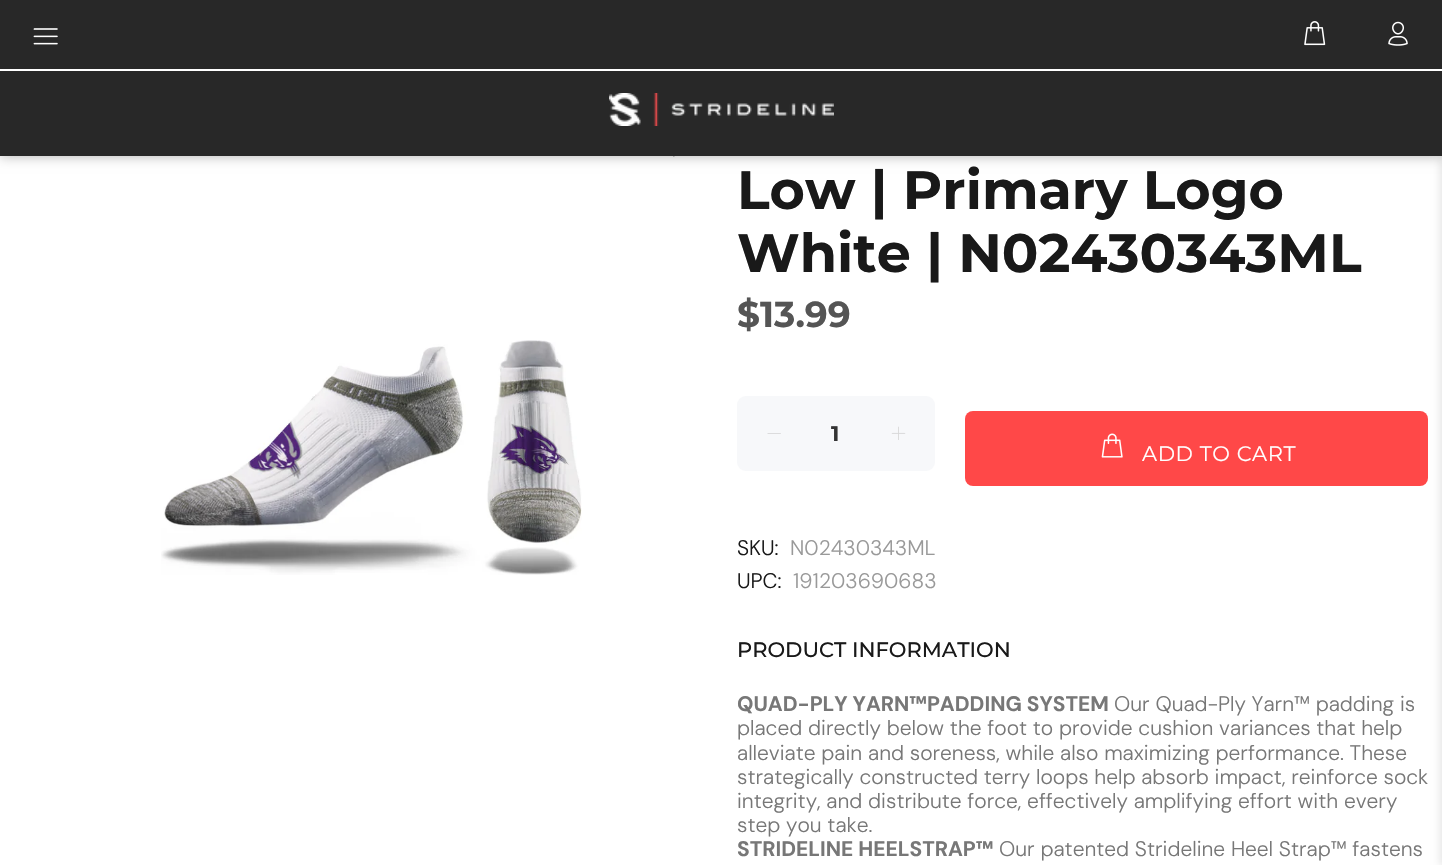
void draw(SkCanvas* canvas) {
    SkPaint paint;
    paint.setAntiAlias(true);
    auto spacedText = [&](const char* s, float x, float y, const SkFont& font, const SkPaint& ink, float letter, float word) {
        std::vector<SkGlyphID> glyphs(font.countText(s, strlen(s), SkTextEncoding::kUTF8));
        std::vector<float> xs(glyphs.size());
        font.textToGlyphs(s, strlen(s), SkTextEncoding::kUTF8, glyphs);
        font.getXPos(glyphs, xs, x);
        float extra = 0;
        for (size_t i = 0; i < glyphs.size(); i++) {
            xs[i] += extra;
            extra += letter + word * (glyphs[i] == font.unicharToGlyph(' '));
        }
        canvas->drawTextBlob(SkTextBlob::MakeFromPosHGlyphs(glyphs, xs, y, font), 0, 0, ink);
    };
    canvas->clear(0xFFFFFFFF);
    canvas->drawImageRect(SkImages::DeferredFromEncodedData(SkData::MakeFromFileName("img5.png")), SkRect::MakeXYWH(673, 156, 2, 1), SkSamplingOptions());
    paint.setColor(0x4D000000);
    paint.setMaskFilter(SkMaskFilter::MakeBlur(kNormal_SkBlurStyle, 6));
    canvas->drawRect(SkRect::MakeXYWH(0, 0, 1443, 156), paint);
    paint.setMaskFilter(nullptr);
    paint.setColor(0xFFFF4848);
    canvas->drawRoundRect(SkRect::MakeXYWH(965, 411, 463, 75), 8, 8, paint);
    paint.setColor(0x1A000000);
    paint.setMaskFilter(SkMaskFilter::MakeBlur(kNormal_SkBlurStyle, 4));
    canvas->drawRect(SkRect::MakeXYWH(1440, 0, 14, 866), paint);
    paint.setMaskFilter(nullptr);
    paint.setColor(0xFF282828);
    canvas->drawRect(SkRect::MakeXYWH(0, 0, 1442, 156), paint);
    canvas->drawImageRect(SkImages::DeferredFromEncodedData(SkData::MakeFromFileName("img1.png")), SkRect::MakeXYWH(33, 28, 25, 17), SkSamplingOptions());
    canvas->drawImageRect(SkImages::DeferredFromEncodedData(SkData::MakeFromFileName("img2.png")), SkRect::MakeXYWH(1304, 21, 22, 25), SkSamplingOptions());
    canvas->drawImageRect(SkImages::DeferredFromEncodedData(SkData::MakeFromFileName("img3.png")), SkRect::MakeXYWH(1388, 21, 20, 25), SkSamplingOptions());
    paint.setColor(0xFFFFFFFF);
    canvas->drawRect(SkRect::MakeXYWH(0, 69, 1442, 2), paint);
    canvas->drawImageRect(SkImages::DeferredFromEncodedData(SkData::MakeFromFileName("img4.png")), SkRect::MakeXYWH(609, 93, 225, 33), SkSamplingOptions());
    canvas->drawImageRect(SkImages::DeferredFromEncodedData(SkData::MakeFromFileName("img6.png")), SkRect::MakeXYWH(161, 340, 421, 235), SkSamplingOptions());
    SkFont font1(fontMgr->matchFamilyStyle("Montserrat", SkFontStyle::Bold()), 54);
    font1.setSubpixel(true);
    paint.setColor(0xFF191919);
    canvas->drawString("Low | Primary Logo", 737, 209, font1, paint);
    canvas->drawString("White | N02430343ML", 737, 272, font1, paint);
    SkFont font2(fontMgr->matchFamilyStyle("Montserrat", SkFontStyle::Bold()), 36);
    font2.setSubpixel(true);
    paint.setColor(0xFF555555);
    canvas->drawString("$13.99", 737, 327, font2, paint);
    paint.setColor(0xFFF7F8FA);
    canvas->drawRoundRect(SkRect::MakeXYWH(737, 396, 198, 75), 9, 9, paint);
    canvas->drawImageRect(SkImages::DeferredFromEncodedData(SkData::MakeFromFileName("img7.png")), SkRect::MakeXYWH(767, 433, 14, 1), SkSamplingOptions());
    SkFont font3(fontMgr->matchFamilyStyle("Montserrat", SkFontStyle::Bold()), 21);
    font3.setSubpixel(true);
    paint.setColor(0xFF333333);
    canvas->drawString("1", 831, 441, font3, paint);
    canvas->drawImageRect(SkImages::DeferredFromEncodedData(SkData::MakeFromFileName("img8.png")), SkRect::MakeXYWH(891, 426, 15, 14), SkSamplingOptions());
    canvas->drawImageRect(SkImages::DeferredFromEncodedData(SkData::MakeFromFileName("img9.png")), SkRect::MakeXYWH(1101, 433, 22, 25), SkSamplingOptions());
    SkFont font4(fontMgr->matchFamilyStyle("Montserrat", SkFontStyle::Normal()), 21);
    font4.setSubpixel(true);
    paint.setColor(0xFFFFFFFF);
    spacedText("ADD TO CART", 1142, 461, font4, paint, 0.6f, 0);
    SkFont font5(fontMgr->matchFamilyStyle("DM Sans", SkFontStyle(300, SkFontStyle::kNormal_Width, SkFontStyle::kUpright_Slant)), 21);
    font5.setSubpixel(true);
    paint.setColor(0xFF191919);
    canvas->drawString("SKU:", 737, 555, font5, paint);
    paint.setColor(0xFF999999);
    canvas->drawString("N02430343ML", 790, 555, font5, paint);
    paint.setColor(0xFF191919);
    canvas->drawString("UPC:", 737, 588, font5, paint);
    paint.setColor(0xFF999999);
    canvas->drawString("191203690683", 793, 588, font5, paint);
    SkFont font6(fontMgr->matchFamilyStyle("Montserrat", SkFontStyle(500, SkFontStyle::kNormal_Width, SkFontStyle::kUpright_Slant)), 21);
    font6.setSubpixel(true);
    paint.setColor(0xFF191919);
    canvas->drawString("PRODUCT INFORMATION", 737, 657, font6, paint);
    SkFont font7(fontMgr->matchFamilyStyle("DM Sans", SkFontStyle::Bold()), 21);
    font7.setSubpixel(true);
    paint.setColor(0xFF777777);
    canvas->drawString("QUAD-PLY YARN™PADDING SYSTEM", 737, 711, font7, paint);
    canvas->drawString("Our Quad-Ply Yarn™ padding is", 1114, 711, font5, paint);
    canvas->drawString("placed directly below the foot to provide cushion variances that help", 737, 735, font5, paint);
    canvas->drawString("alleviate pain and soreness, while also maximizing performance. These", 737, 760, font5, paint);
    canvas->drawString("strategically constructed terry loops help absorb impact, reinforce sock", 737, 784, font5, paint);
    canvas->drawString("integrity, and distribute force, effectively amplifying effort with every", 737, 808, font5, paint);
    canvas->drawString("step you take.", 737, 832, font5, paint);
    canvas->drawString("STRIDELINE HEELSTRAP™", 737, 856, font7, paint);
    canvas->drawString("Our patented Strideline Heel Strap™ fastens", 999, 856, font5, paint);
}
